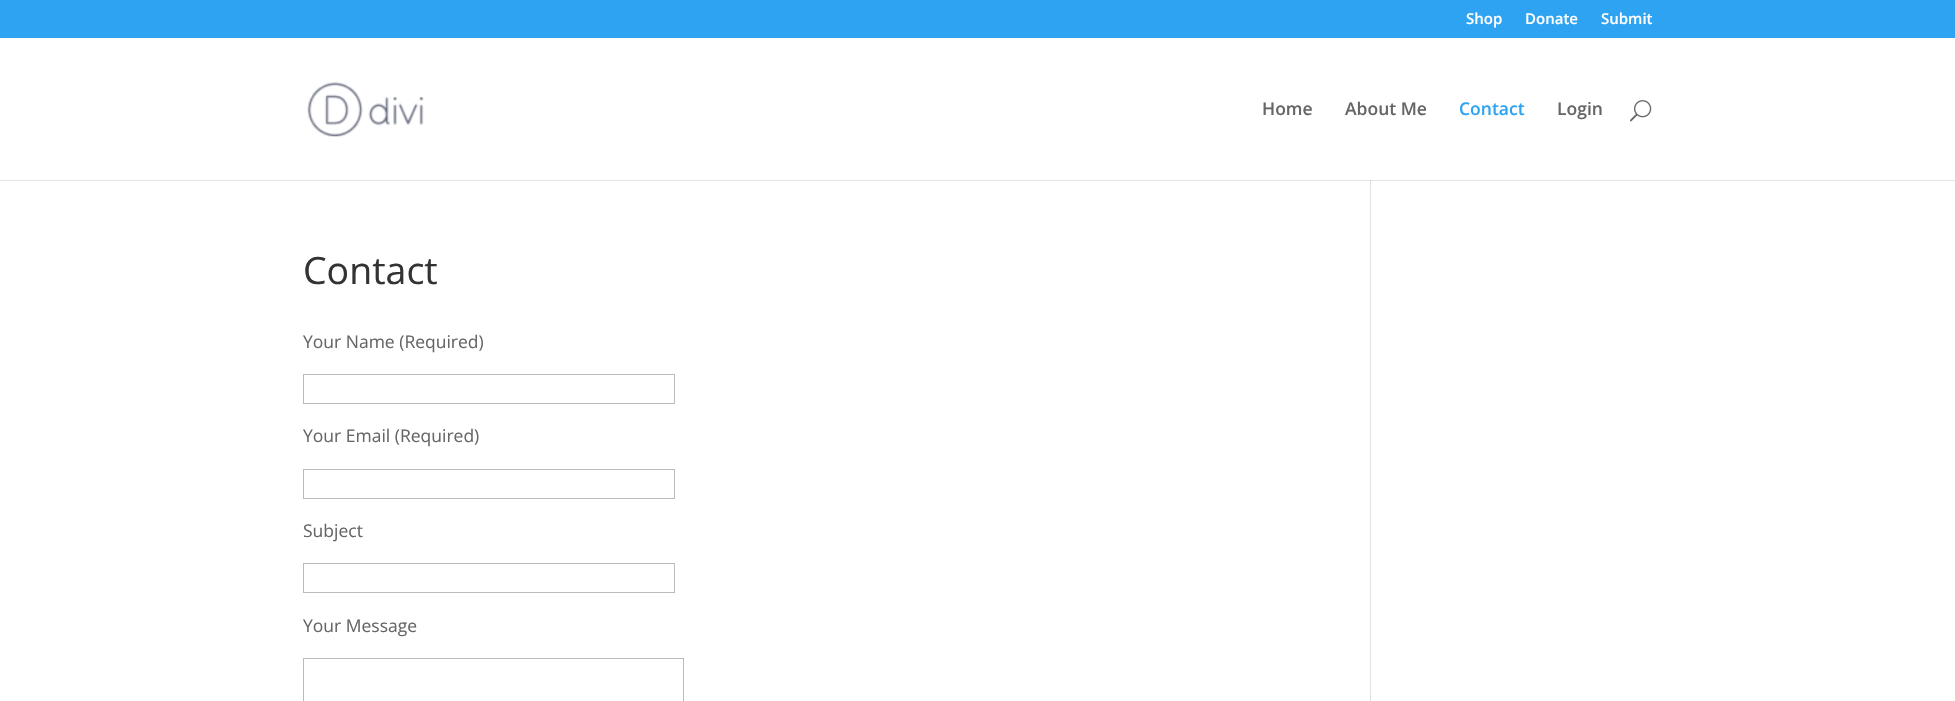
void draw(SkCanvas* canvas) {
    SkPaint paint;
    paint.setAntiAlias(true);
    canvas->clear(0xFFFFFFFF);
    paint.setColor(0xFFE6E6E6);
    canvas->drawRect(SkRect::MakeXYWH(0, 180, 1955, 1), paint);
    paint.setColor(0xFF2EA3F2);
    canvas->drawRect(SkRect::MakeXYWH(0, 0, 1955, 38), paint);
    SkFont font1(fontMgr->matchFamilyStyle("Open Sans", SkFontStyle(600, SkFontStyle::kNormal_Width, SkFontStyle::kUpright_Slant)), 15);
    font1.setSubpixel(true);
    paint.setColor(0xFFFFFFFF);
    canvas->drawString("Shop", 1466, 24, font1, paint);
    canvas->drawString("Donate", 1525, 24, font1, paint);
    canvas->drawString("Submit", 1601, 24, font1, paint);
    paint.setColor(0xFFE2E2E2);
    canvas->drawRect(SkRect::MakeXYWH(1370, 179, 1, 522), paint);
    paint.setColor(0xFFFFFFFF);
    canvas->drawRect(SkRect::MakeXYWH(1370, 179, 1, 1), paint);
    canvas->drawImageRect(SkImages::DeferredFromEncodedData(SkData::MakeFromFileName("img1.png")), SkRect::MakeXYWH(307, 82, 117, 55), SkSamplingOptions());
    SkFont font2(fontMgr->matchFamilyStyle("Open Sans", SkFontStyle(600, SkFontStyle::kNormal_Width, SkFontStyle::kUpright_Slant)), 17.5f);
    font2.setSubpixel(true);
    paint.setColor(0xFF666666);
    canvas->drawString("Home", 1262, 115, font2, paint);
    canvas->drawString("About Me", 1345, 115, font2, paint);
    paint.setColor(0xFF2EA3F2);
    canvas->drawString("Contact", 1459, 115, font2, paint);
    paint.setColor(0xFF666666);
    canvas->drawString("Login", 1557, 115, font2, paint);
    canvas->drawImageRect(SkImages::DeferredFromEncodedData(SkData::MakeFromFileName("img2.png")), SkRect::MakeXYWH(1630, 100, 22, 22), SkSamplingOptions());
    SkFont font3(fontMgr->matchFamilyStyle("Open Sans", SkFontStyle::Normal()), 37.5f);
    font3.setSubpixel(true);
    paint.setColor(0xFF333333);
    canvas->drawString("Contact", 303, 284, font3, paint);
    SkFont font4(fontMgr->matchFamilyStyle("Open Sans", SkFontStyle::Normal()), 17.5f);
    font4.setSubpixel(true);
    paint.setColor(0xFF666666);
    canvas->drawString("Your Name (Required)", 303, 348, font4, paint);
    paint.setStyle(SkPaint::kStroke_Style);
    paint.setStrokeWidth(1);
    paint.setColor(0xFFBBBBBB);
    canvas->drawRect(SkRect::MakeXYWH(303.5f, 374.5f, 371, 29), paint);
    paint.setStyle(SkPaint::kFill_Style);
    paint.setColor(0xFF666666);
    canvas->drawString("Your Email (Required)", 303, 442, font4, paint);
    paint.setStyle(SkPaint::kStroke_Style);
    paint.setColor(0xFFBBBBBB);
    canvas->drawRect(SkRect::MakeXYWH(303.5f, 469.5f, 371, 29), paint);
    paint.setStyle(SkPaint::kFill_Style);
    paint.setColor(0xFF666666);
    canvas->drawString("Subject", 303, 537, font4, paint);
    paint.setStyle(SkPaint::kStroke_Style);
    paint.setColor(0xFFBBBBBB);
    canvas->drawRect(SkRect::MakeXYWH(303.5f, 563.5f, 371, 29), paint);
    paint.setStyle(SkPaint::kFill_Style);
    paint.setColor(0xFF666666);
    canvas->drawString("Your Message", 303, 632, font4, paint);
    paint.setStyle(SkPaint::kStroke_Style);
    paint.setColor(0xFFBBBBBB);
    canvas->drawRect(SkRect::MakeXYWH(303.5f, 658.5f, 380, 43), paint);
    paint.setStyle(SkPaint::kFill_Style);
    paint.setColor(0xFFCBCBCB);
    canvas->drawRect(SkRect::MakeXYWH(1370, 180, 1, 1), paint);
}
